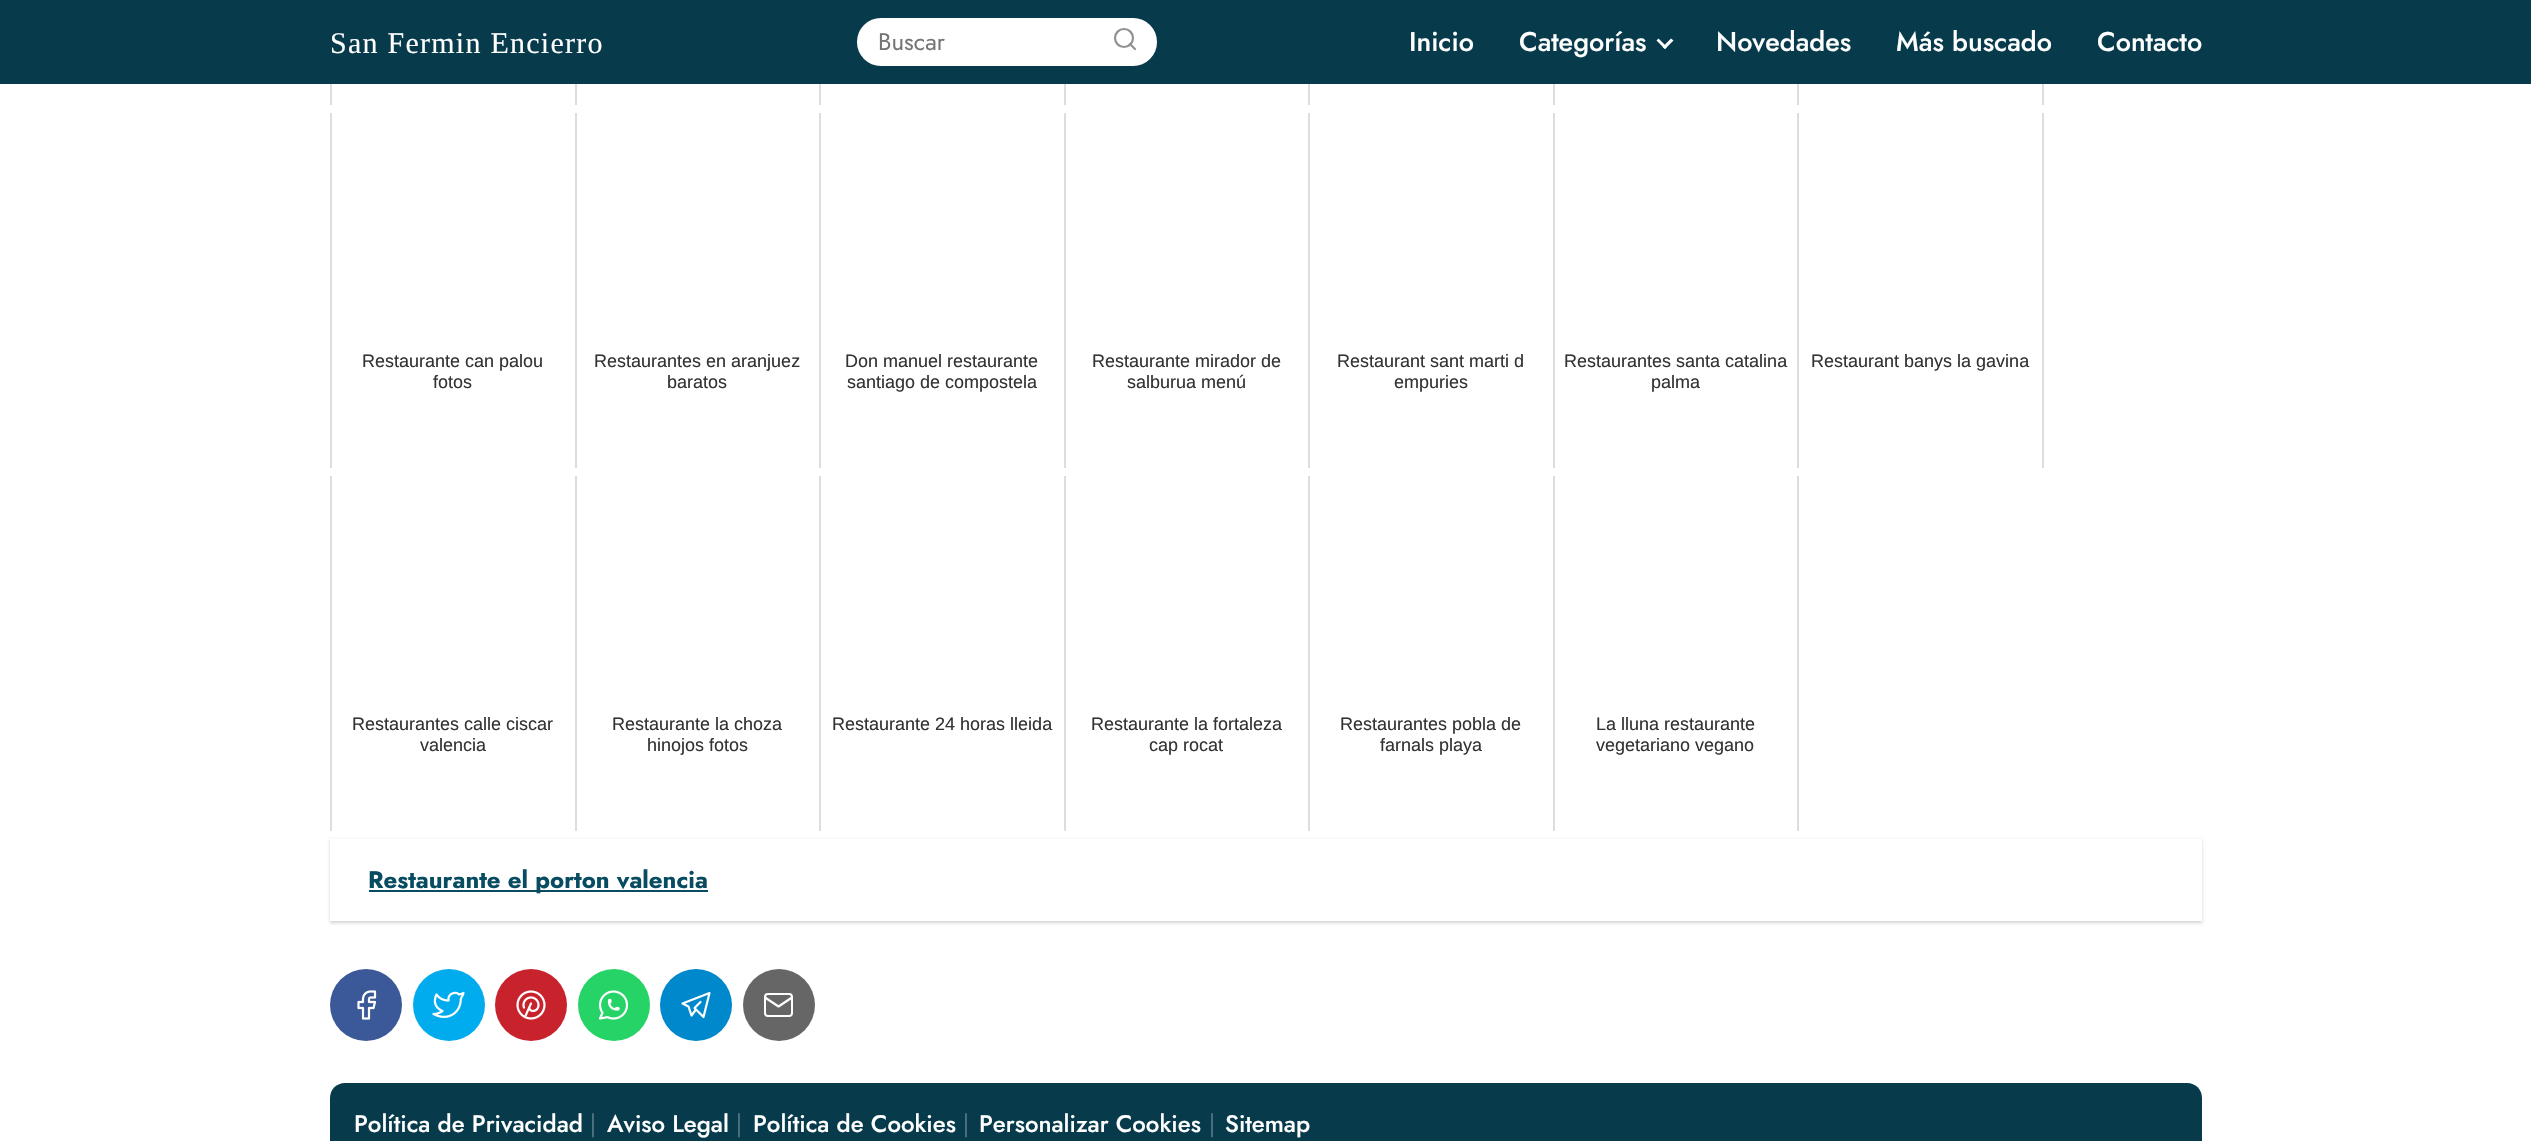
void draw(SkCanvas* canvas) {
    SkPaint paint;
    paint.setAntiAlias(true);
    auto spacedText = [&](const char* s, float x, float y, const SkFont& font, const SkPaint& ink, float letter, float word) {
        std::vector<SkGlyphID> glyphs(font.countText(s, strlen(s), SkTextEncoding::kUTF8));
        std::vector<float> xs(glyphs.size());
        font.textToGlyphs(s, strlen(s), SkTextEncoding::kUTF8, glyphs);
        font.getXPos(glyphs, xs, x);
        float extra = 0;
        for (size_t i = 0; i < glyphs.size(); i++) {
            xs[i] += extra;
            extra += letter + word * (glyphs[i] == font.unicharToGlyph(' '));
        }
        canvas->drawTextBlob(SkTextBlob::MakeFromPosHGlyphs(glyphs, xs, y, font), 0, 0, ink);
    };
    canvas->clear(0xFFFFFFFF);
    paint.setColor(0xFF073B4C);
    canvas->drawRect(SkRect::MakeXYWH(0, 0, 2531, 84), paint);
    SkFont font1(fontMgr->matchFamilyStyle("Liberation Serif", SkFontStyle::Normal()), 30);
    font1.setSubpixel(true);
    paint.setColor(0xFFFFFFFF);
    spacedText("San Fermin Encierro", 330, 53, font1, paint, 1.25f, 0);
    canvas->drawRoundRect(SkRect::MakeXYWH(857, 18, 300, 48), 24, 24, paint);
    paint.setStyle(SkPaint::kStroke_Style);
    paint.setStrokeWidth(2);
    paint.setColor(0x26FFFFFF);
    canvas->drawRoundRect(SkRect::MakeXYWH(858, 19, 298, 46), 23, 23, paint);
    SkFont font2(fontMgr->matchFamilyStyle("Jost", SkFontStyle::Normal()), 24);
    font2.setSubpixel(true);
    paint.setStyle(SkPaint::kFill_Style);
    paint.setColor(0xFF757575);
    canvas->drawString("Buscar", 878, 50, font2, paint);
    paint.setStyle(SkPaint::kStroke_Style);
    paint.setStrokeWidth(2.2f);
    paint.setColor(0xFF919191);
    canvas->drawCircle(1124, 38, 9, paint);
    paint.setStrokeCap(SkPaint::kRound_Cap);
    paint.setStrokeJoin(SkPaint::kRound_Join);
    canvas->drawPath(SkPathBuilder().moveTo(1135, 49).lineTo(1130, 44).detach(), paint);
    SkFont font3(fontMgr->matchFamilyStyle("Jost", SkFontStyle(500, SkFontStyle::kNormal_Width, SkFontStyle::kUpright_Slant)), 27);
    font3.setSubpixel(true);
    paint.setStyle(SkPaint::kFill_Style);
    paint.setColor(0xFFFFFFFF);
    canvas->drawString("Inicio", 1409, 51, font3, paint);
    canvas->drawString("Categorías", 1519, 51, font3, paint);
    canvas->drawPath(SkPathBuilder().moveTo(1671, 38.5f).lineTo(1673.5f, 40.5f).lineTo(1665, 49).lineTo(1662.5f, 47).close().detach(), paint);
    canvas->drawPath(SkPathBuilder().moveTo(1658.5f, 38.5f).lineTo(1667, 47).lineTo(1665, 49).lineTo(1656.5f, 40.5f).close().detach(), paint);
    canvas->drawString("Novedades", 1716, 51, font3, paint);
    canvas->drawString("Más buscado", 1896, 51, font3, paint);
    canvas->drawString("Contacto", 2097, 51, font3, paint);
    paint.setColor(0xFFDDDDDD);
    canvas->drawRect(SkRect::MakeXYWH(330, 84, 2, 21), paint);
    canvas->drawRect(SkRect::MakeXYWH(575, 84, 2, 21), paint);
    canvas->drawRect(SkRect::MakeXYWH(819, 84, 2, 21), paint);
    canvas->drawRect(SkRect::MakeXYWH(1064, 84, 2, 21), paint);
    canvas->drawRect(SkRect::MakeXYWH(1308, 84, 2, 21), paint);
    canvas->drawRect(SkRect::MakeXYWH(1553, 84, 2, 21), paint);
    canvas->drawRect(SkRect::MakeXYWH(2042, 84, 2, 21), paint);
    canvas->drawRect(SkRect::MakeXYWH(1797, 84, 2, 21), paint);
    canvas->drawRect(SkRect::MakeXYWH(330, 113, 2, 355), paint);
    SkFont font4(fontMgr->matchFamilyStyle("Liberation Sans", SkFontStyle::Normal()), 18);
    font4.setSubpixel(true);
    paint.setColor(0xFF333333);
    canvas->drawString("Restaurante can palou", 362, 367, font4, paint);
    canvas->drawString("fotos", 433, 388, font4, paint);
    paint.setColor(0xFFDDDDDD);
    canvas->drawRect(SkRect::MakeXYWH(575, 113, 2, 355), paint);
    paint.setColor(0xFF333333);
    canvas->drawString("Restaurantes en aranjuez", 594, 367, font4, paint);
    canvas->drawString("baratos", 667, 388, font4, paint);
    paint.setColor(0xFFDDDDDD);
    canvas->drawRect(SkRect::MakeXYWH(819, 113, 2, 355), paint);
    paint.setColor(0xFF333333);
    canvas->drawString("Don manuel restaurante", 845, 367, font4, paint);
    canvas->drawString("santiago de compostela", 847, 388, font4, paint);
    paint.setColor(0xFFDDDDDD);
    canvas->drawRect(SkRect::MakeXYWH(1064, 113, 2, 355), paint);
    paint.setColor(0xFF333333);
    canvas->drawString("Restaurante mirador de", 1092, 367, font4, paint);
    canvas->drawString("salburua menú", 1127, 388, font4, paint);
    paint.setColor(0xFFDDDDDD);
    canvas->drawRect(SkRect::MakeXYWH(1308, 113, 2, 355), paint);
    paint.setColor(0xFF333333);
    canvas->drawString("Restaurant sant marti d", 1337, 367, font4, paint);
    canvas->drawString("empuries", 1394, 388, font4, paint);
    paint.setColor(0xFFDDDDDD);
    canvas->drawRect(SkRect::MakeXYWH(1553, 113, 2, 355), paint);
    paint.setColor(0xFF333333);
    canvas->drawString("Restaurantes santa catalina", 1564, 367, font4, paint);
    canvas->drawString("palma", 1651, 388, font4, paint);
    paint.setColor(0xFFDDDDDD);
    canvas->drawRect(SkRect::MakeXYWH(2042, 113, 2, 355), paint);
    canvas->drawRect(SkRect::MakeXYWH(1797, 113, 2, 355), paint);
    paint.setColor(0xFF333333);
    canvas->drawString("Restaurant banys la gavina", 1811, 367, font4, paint);
    paint.setColor(0xFFDDDDDD);
    canvas->drawRect(SkRect::MakeXYWH(330, 476, 2, 355), paint);
    paint.setColor(0xFF333333);
    canvas->drawString("Restaurantes calle ciscar", 352, 730, font4, paint);
    canvas->drawString("valencia", 420, 751, font4, paint);
    paint.setColor(0xFFDDDDDD);
    canvas->drawRect(SkRect::MakeXYWH(575, 476, 2, 355), paint);
    paint.setColor(0xFF333333);
    canvas->drawString("Restaurante la choza", 612, 730, font4, paint);
    canvas->drawString("hinojos fotos", 647, 751, font4, paint);
    paint.setColor(0xFFDDDDDD);
    canvas->drawRect(SkRect::MakeXYWH(819, 476, 2, 355), paint);
    paint.setColor(0xFF333333);
    canvas->drawString("Restaurante 24 horas lleida", 832, 730, font4, paint);
    paint.setColor(0xFFDDDDDD);
    canvas->drawRect(SkRect::MakeXYWH(1064, 476, 2, 355), paint);
    paint.setColor(0xFF333333);
    canvas->drawString("Restaurante la fortaleza", 1091, 730, font4, paint);
    canvas->drawString("cap rocat", 1149, 751, font4, paint);
    paint.setColor(0xFFDDDDDD);
    canvas->drawRect(SkRect::MakeXYWH(1308, 476, 2, 355), paint);
    paint.setColor(0xFF333333);
    canvas->drawString("Restaurantes pobla de", 1340, 730, font4, paint);
    canvas->drawString("farnals playa", 1380, 751, font4, paint);
    paint.setColor(0xFFDDDDDD);
    canvas->drawRect(SkRect::MakeXYWH(1797, 476, 2, 355), paint);
    canvas->drawRect(SkRect::MakeXYWH(1553, 476, 2, 355), paint);
    paint.setColor(0xFF333333);
    canvas->drawString("La lluna restaurante", 1596, 730, font4, paint);
    canvas->drawString("vegetariano vegano", 1596, 751, font4, paint);
    canvas->save();
    canvas->clipPath(SkPathBuilder(SkPathFillType::kEvenOdd).moveTo(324, 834).lineTo(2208, 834).lineTo(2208, 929).lineTo(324, 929).close().moveTo(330, 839).lineTo(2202, 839).lineTo(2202, 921).lineTo(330, 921).close().detach(), true);
    paint.setColor(0x2B000000);
    paint.setMaskFilter(SkMaskFilter::MakeBlur(kNormal_SkBlurStyle, 1.5f));
    canvas->drawRect(SkRect::MakeXYWH(330, 840, 1872, 83), paint);
    paint.setMaskFilter(nullptr);
    canvas->restore();
    paint.setColor(0xFF084C61);
    canvas->drawRect(SkRect::MakeXYWH(369, 890, 339, 2), paint);
    SkFont font5(fontMgr->matchFamilyStyle("Jost", SkFontStyle::Bold()), 24);
    font5.setSubpixel(true);
    canvas->drawString("Restaurante el porton valencia", 368, 888, font5, paint);
    paint.setColor(0xFF3B5998);
    canvas->drawCircle(366, 1005, 36, paint);
    canvas->drawImageRect(SkImages::DeferredFromEncodedData(SkData::MakeFromFileName("img1.png")), SkRect::MakeXYWH(357, 990, 20, 30), SkSamplingOptions());
    paint.setColor(0xFF00ACEE);
    canvas->drawCircle(449, 1005, 36, paint);
    canvas->drawImageRect(SkImages::DeferredFromEncodedData(SkData::MakeFromFileName("img2.png")), SkRect::MakeXYWH(432, 991, 33, 27), SkSamplingOptions());
    paint.setColor(0xFFC8232C);
    canvas->drawCircle(531, 1005, 36, paint);
    canvas->drawImageRect(SkImages::DeferredFromEncodedData(SkData::MakeFromFileName("img3.png")), SkRect::MakeXYWH(516, 990, 30, 30), SkSamplingOptions());
    paint.setColor(0xFF25D366);
    canvas->drawCircle(614, 1005, 36, paint);
    canvas->drawImageRect(SkImages::DeferredFromEncodedData(SkData::MakeFromFileName("img4.png")), SkRect::MakeXYWH(598, 990, 31, 30), SkSamplingOptions());
    paint.setColor(0xFF0088CC);
    canvas->drawCircle(696, 1005, 36, paint);
    paint.setStyle(SkPaint::kStroke_Style);
    paint.setColor(0xFFFFFFFF);
    canvas->drawPath(SkPathBuilder().moveTo(700.5f, 1002).lineTo(694.5f, 1008).lineTo(703.5f, 1017).lineTo(709.5f, 993).lineTo(682.5f, 1003.5f).lineTo(688.5f, 1006.5f).lineTo(691.5f, 1015.5f).lineTo(696, 1009.5f).detach(), paint);
    paint.setStyle(SkPaint::kFill_Style);
    paint.setColor(0xFF666666);
    canvas->drawCircle(779, 1005, 36, paint);
    paint.setStyle(SkPaint::kStroke_Style);
    paint.setStrokeWidth(2);
    paint.setStrokeCap(SkPaint::kButt_Cap);
    paint.setStrokeJoin(SkPaint::kMiter_Join);
    paint.setColor(0xFFFFFFFF);
    canvas->drawRoundRect(SkRect::MakeXYWH(765, 994, 27, 22), 3, 3, paint);
    paint.setStrokeWidth(2.2f);
    paint.setStrokeCap(SkPaint::kRound_Cap);
    paint.setStrokeJoin(SkPaint::kRound_Join);
    canvas->drawPath(SkPathBuilder().moveTo(765, 997.5f).lineTo(778.5f, 1006.5f).lineTo(792, 997.5f).detach(), paint);
    paint.setStyle(SkPaint::kFill_Style);
    paint.setColor(0xFF073B4C);
    canvas->drawPath(SkPathBuilder().moveTo(345, 1083).lineTo(2187, 1083).cubicTo(2195.5f, 1083, 2202, 1089.5f, 2202, 1098).lineTo(2202, 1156).lineTo(330, 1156).lineTo(330, 1098).cubicTo(330, 1089.5f, 336.5f, 1083, 345, 1083).close().detach(), paint);
    SkFont font6(fontMgr->matchFamilyStyle("Jost", SkFontStyle(500, SkFontStyle::kNormal_Width, SkFontStyle::kUpright_Slant)), 24);
    font6.setSubpixel(true);
    paint.setColor(0xFFFFFFFF);
    canvas->drawString("Política de Privacidad", 354, 1132, font6, paint);
    SkFont font7(fontMgr->matchFamilyStyle("Jost", SkFontStyle(300, SkFontStyle::kNormal_Width, SkFontStyle::kUpright_Slant)), 24);
    font7.setSubpixel(true);
    paint.setColor(0xFF6A8994);
    canvas->drawString("|", 590, 1132, font7, paint);
    paint.setColor(0xFFFFFFFF);
    canvas->drawString("Aviso Legal", 607, 1132, font6, paint);
    paint.setColor(0xFF6A8994);
    canvas->drawString("|", 736, 1132, font7, paint);
    paint.setColor(0xFFFFFFFF);
    canvas->drawString("Política de Cookies", 753, 1132, font6, paint);
    paint.setColor(0xFF6A8994);
    canvas->drawString("|", 963, 1132, font7, paint);
    paint.setColor(0xFFFFFFFF);
    canvas->drawString("Personalizar Cookies", 979, 1132, font6, paint);
    paint.setColor(0xFF6A8994);
    canvas->drawString("|", 1209, 1132, font7, paint);
    paint.setColor(0xFFFFFFFF);
    canvas->drawString("Sitemap", 1225, 1132, font6, paint);
}
